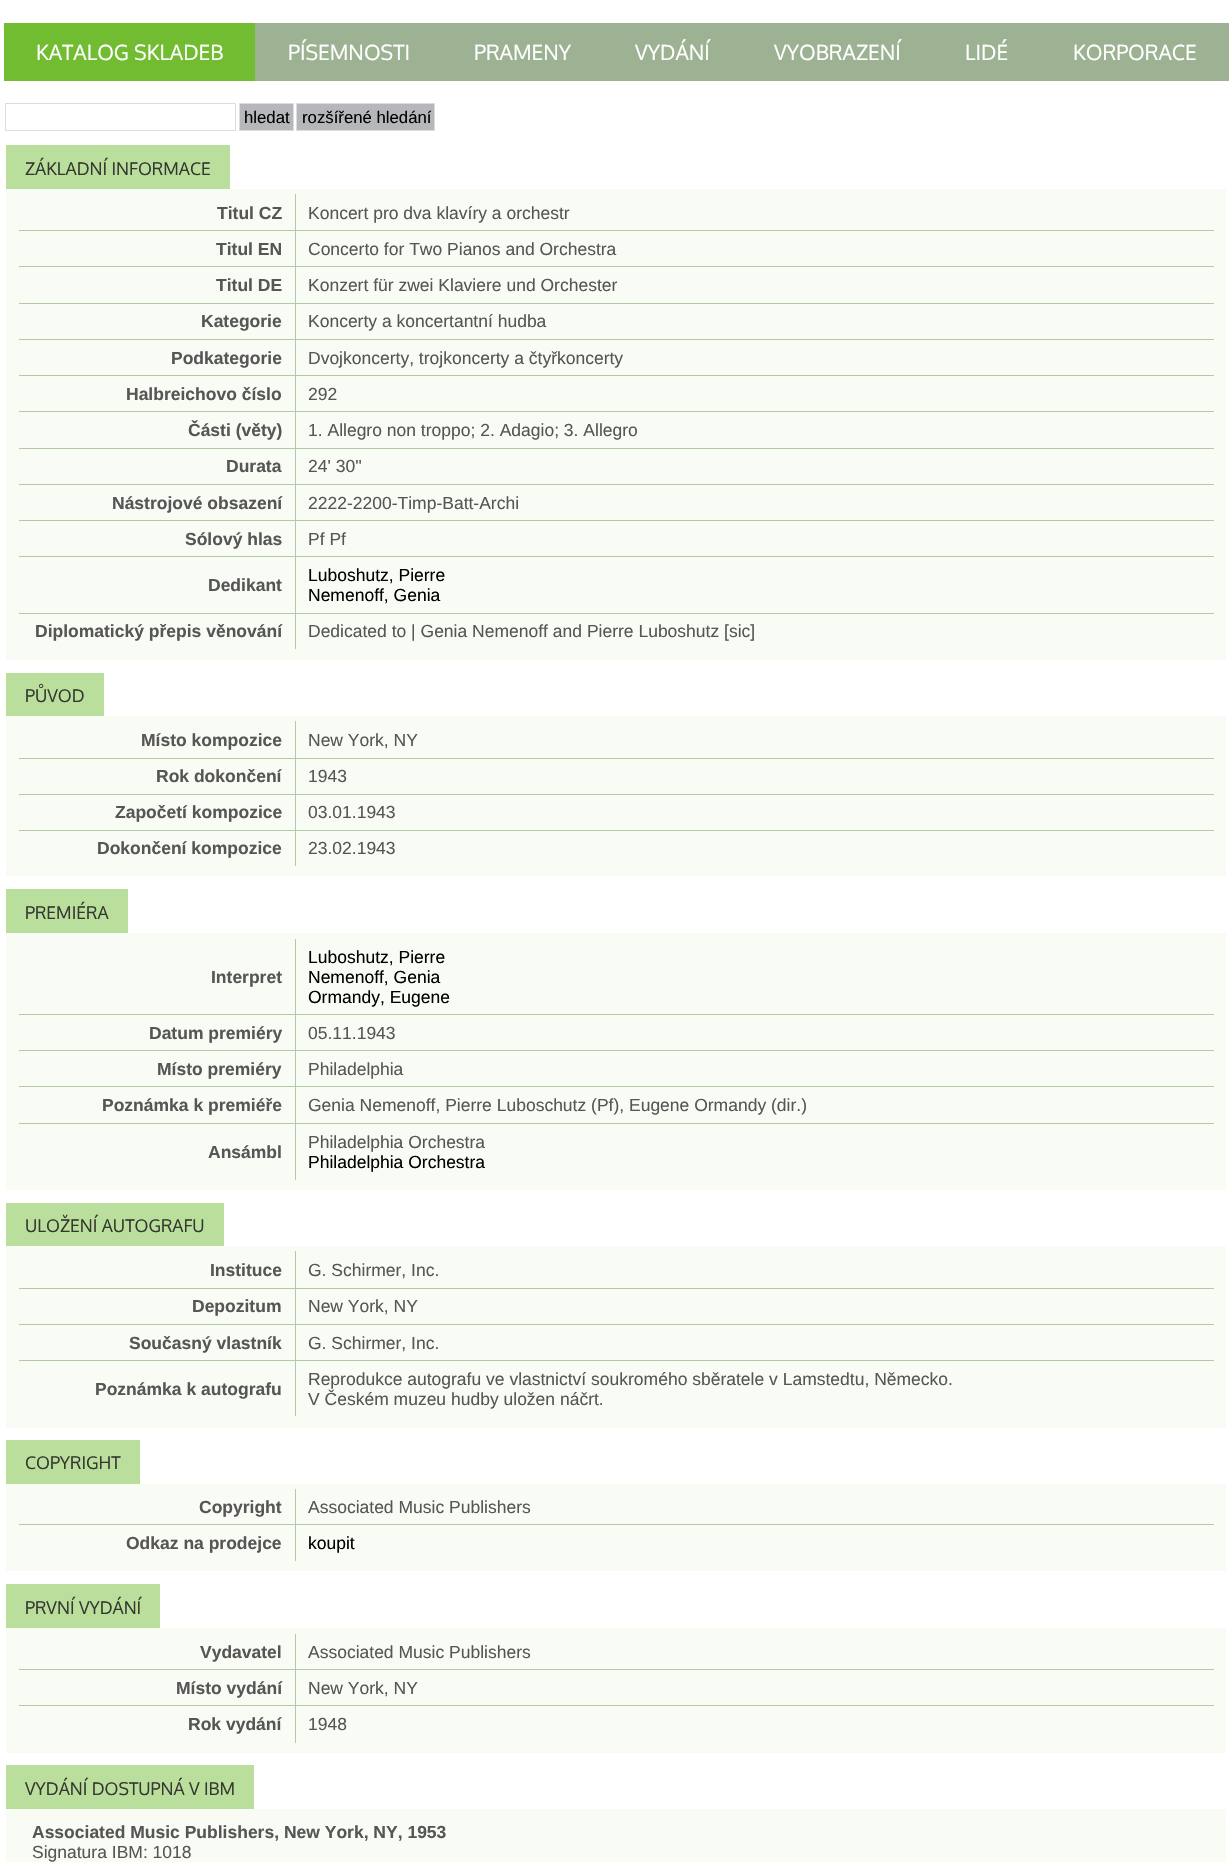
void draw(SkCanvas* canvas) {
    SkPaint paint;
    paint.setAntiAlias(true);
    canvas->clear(0xFFFFFFFF);
    paint.setColor(0xFF72BC31);
    canvas->drawRect(SkRect::MakeXYWH(4, 23, 251, 58), paint);
    SkFont font1(fontMgr->matchFamilyStyle("Oxygen", SkFontStyle::Normal()), 21);
    font1.setSubpixel(true);
    paint.setColor(0xFFFFFFFF);
    canvas->drawString("KATALOG SKLADEB", 36, 60, font1, paint);
    paint.setColor(0xFF9DB292);
    canvas->drawRect(SkRect::MakeXYWH(255, 23, 974, 58), paint);
    paint.setColor(0xFFFFFFFF);
    canvas->drawString("PÍSEMNOSTI", 288, 60, font1, paint);
    canvas->drawString("PRAMENY", 474, 60, font1, paint);
    canvas->drawString("VYDÁNÍ", 635, 60, font1, paint);
    canvas->drawString("VYOBRAZENÍ", 774, 60, font1, paint);
    canvas->drawString("LIDÉ", 965, 60, font1, paint);
    canvas->drawString("KORPORACE", 1073, 60, font1, paint);
    paint.setStyle(SkPaint::kStroke_Style);
    paint.setStrokeWidth(1);
    paint.setColor(0xFFDDDDDD);
    canvas->drawRect(SkRect::MakeXYWH(5.5f, 103.5f, 230, 27), paint);
    paint.setStyle(SkPaint::kFill_Style);
    paint.setColor(0xFFB6B7BA);
    canvas->drawRect(SkRect::MakeXYWH(239.5f, 103.5f, 54, 27), paint);
    paint.setStyle(SkPaint::kStroke_Style);
    paint.setColor(0xFFDDDDDD);
    canvas->drawRect(SkRect::MakeXYWH(239.5f, 103.5f, 54, 27), paint);
    SkFont font2(fontMgr->matchFamilyStyle("Liberation Sans", SkFontStyle::Normal()), 16.75f);
    font2.setSubpixel(true);
    paint.setStyle(SkPaint::kFill_Style);
    paint.setColor(0xFF000000);
    canvas->drawString("hledat", 244, 123, font2, paint);
    paint.setColor(0xFFB6B7BA);
    canvas->drawRect(SkRect::MakeXYWH(296.5f, 103.5f, 138, 27), paint);
    paint.setStyle(SkPaint::kStroke_Style);
    paint.setColor(0xFFDDDDDD);
    canvas->drawRect(SkRect::MakeXYWH(296.5f, 103.5f, 138, 27), paint);
    paint.setStyle(SkPaint::kFill_Style);
    paint.setColor(0xFF000000);
    canvas->drawString("rozšířené hledání", 302, 123, font2, paint);
    paint.setColor(0xFFF9FCF5);
    canvas->drawRect(SkRect::MakeXYWH(6, 189, 1220, 471), paint);
    paint.setColor(0xFFBADF9C);
    canvas->drawRect(SkRect::MakeXYWH(6, 145, 224, 44), paint);
    SkFont font3(fontMgr->matchFamilyStyle("Oxygen", SkFontStyle::Normal()), 17.5f);
    font3.setSubpixel(true);
    paint.setColor(0xFF363730);
    canvas->drawString("ZÁKLADNÍ INFORMACE", 25, 175, font3, paint);
    paint.setColor(0xFFB3CAA7);
    canvas->drawRect(SkRect::MakeXYWH(295, 613, 1, 36), paint);
    canvas->drawRect(SkRect::MakeXYWH(295, 613, 919, 1), paint);
    canvas->drawRect(SkRect::MakeXYWH(295, 556, 1, 58), paint);
    canvas->drawRect(SkRect::MakeXYWH(295, 556, 919, 1), paint);
    canvas->drawRect(SkRect::MakeXYWH(295, 520, 1, 38), paint);
    canvas->drawRect(SkRect::MakeXYWH(295, 520, 919, 1), paint);
    canvas->drawRect(SkRect::MakeXYWH(295, 484, 1, 37), paint);
    canvas->drawRect(SkRect::MakeXYWH(295, 484, 919, 1), paint);
    canvas->drawRect(SkRect::MakeXYWH(295, 448, 1, 37), paint);
    canvas->drawRect(SkRect::MakeXYWH(295, 448, 919, 1), paint);
    canvas->drawRect(SkRect::MakeXYWH(295, 411, 1, 38), paint);
    canvas->drawRect(SkRect::MakeXYWH(295, 411, 919, 1), paint);
    canvas->drawRect(SkRect::MakeXYWH(295, 375, 1, 38), paint);
    canvas->drawRect(SkRect::MakeXYWH(295, 375, 919, 1), paint);
    canvas->drawRect(SkRect::MakeXYWH(295, 339, 1, 37), paint);
    canvas->drawRect(SkRect::MakeXYWH(295, 339, 919, 1), paint);
    canvas->drawRect(SkRect::MakeXYWH(295, 303, 1, 37), paint);
    canvas->drawRect(SkRect::MakeXYWH(295, 303, 919, 1), paint);
    canvas->drawRect(SkRect::MakeXYWH(295, 266, 1, 38), paint);
    canvas->drawRect(SkRect::MakeXYWH(295, 266, 919, 1), paint);
    canvas->drawRect(SkRect::MakeXYWH(295, 230, 1, 38), paint);
    canvas->drawRect(SkRect::MakeXYWH(295, 230, 919, 1), paint);
    canvas->drawRect(SkRect::MakeXYWH(295, 194, 1, 37), paint);
    canvas->drawRect(SkRect::MakeXYWH(19, 230, 277, 1), paint);
    SkFont font4(fontMgr->matchFamilyStyle("Liberation Sans", SkFontStyle::Bold()), 17.5f);
    font4.setSubpixel(true);
    paint.setColor(0xFF565656);
    canvas->drawString("Titul CZ", 217, 219, font4, paint);
    SkFont font5(fontMgr->matchFamilyStyle("Liberation Sans", SkFontStyle::Normal()), 17.5f);
    font5.setSubpixel(true);
    canvas->drawString("Koncert pro dva klavíry a orchestr", 308, 219, font5, paint);
    paint.setColor(0xFFB3CAA7);
    canvas->drawRect(SkRect::MakeXYWH(19, 266, 277, 1), paint);
    paint.setColor(0xFF565656);
    canvas->drawString("Titul EN", 216, 255, font4, paint);
    canvas->drawString("Concerto for Two Pianos and Orchestra", 308, 255, font5, paint);
    paint.setColor(0xFFB3CAA7);
    canvas->drawRect(SkRect::MakeXYWH(19, 303, 277, 1), paint);
    paint.setColor(0xFF565656);
    canvas->drawString("Titul DE", 216, 291, font4, paint);
    canvas->drawString("Konzert für zwei Klaviere und Orchester", 308, 291, font5, paint);
    paint.setColor(0xFFB3CAA7);
    canvas->drawRect(SkRect::MakeXYWH(19, 339, 277, 1), paint);
    paint.setColor(0xFF565656);
    canvas->drawString("Kategorie", 201, 327, font4, paint);
    canvas->drawString("Koncerty a koncertantní hudba", 308, 327, font5, paint);
    paint.setColor(0xFFB3CAA7);
    canvas->drawRect(SkRect::MakeXYWH(19, 375, 277, 1), paint);
    paint.setColor(0xFF565656);
    canvas->drawString("Podkategorie", 171, 364, font4, paint);
    canvas->drawString("Dvojkoncerty, trojkoncerty a čtyřkoncerty", 308, 364, font5, paint);
    paint.setColor(0xFFB3CAA7);
    canvas->drawRect(SkRect::MakeXYWH(19, 411, 277, 1), paint);
    paint.setColor(0xFF565656);
    canvas->drawString("Halbreichovo číslo", 126, 400, font4, paint);
    canvas->drawString("292", 308, 400, font5, paint);
    paint.setColor(0xFFB3CAA7);
    canvas->drawRect(SkRect::MakeXYWH(19, 448, 277, 1), paint);
    paint.setColor(0xFF565656);
    canvas->drawString("Části (věty)", 188, 436, font4, paint);
    canvas->drawString("1. Allegro non troppo; 2. Adagio; 3. Allegro", 308, 436, font5, paint);
    paint.setColor(0xFFB3CAA7);
    canvas->drawRect(SkRect::MakeXYWH(19, 484, 277, 1), paint);
    paint.setColor(0xFF565656);
    canvas->drawString("Durata", 226, 472, font4, paint);
    canvas->drawString("24' 30''", 308, 472, font5, paint);
    paint.setColor(0xFFB3CAA7);
    canvas->drawRect(SkRect::MakeXYWH(19, 520, 277, 1), paint);
    paint.setColor(0xFF565656);
    canvas->drawString("Nástrojové obsazení", 112, 509, font4, paint);
    canvas->drawString("2222-2200-Timp-Batt-Archi", 308, 509, font5, paint);
    paint.setColor(0xFFB3CAA7);
    canvas->drawRect(SkRect::MakeXYWH(19, 556, 277, 1), paint);
    paint.setColor(0xFF565656);
    canvas->drawString("Sólový hlas", 185, 545, font4, paint);
    canvas->drawString("Pf Pf", 308, 545, font5, paint);
    paint.setColor(0xFFB3CAA7);
    canvas->drawRect(SkRect::MakeXYWH(19, 613, 277, 1), paint);
    paint.setColor(0xFF565656);
    canvas->drawString("Dedikant", 208, 591, font4, paint);
    paint.setColor(0xFF000000);
    canvas->drawString("Luboshutz, Pierre", 308, 581, font5, paint);
    canvas->drawString("Nemenoff, Genia", 308, 601, font5, paint);
    paint.setColor(0xFF565656);
    canvas->drawString("Diplomatický přepis věnování", 35, 637, font4, paint);
    canvas->drawString("Dedicated to | Genia Nemenoff and Pierre Luboshutz [sic]", 308, 637, font5, paint);
    paint.setColor(0xFFF9FCF5);
    canvas->drawRect(SkRect::MakeXYWH(6, 716, 1220, 160), paint);
    paint.setColor(0xFFBADF9C);
    canvas->drawRect(SkRect::MakeXYWH(6, 673, 98, 43), paint);
    paint.setColor(0xFF363730);
    canvas->drawString("PŮVOD", 25, 702, font3, paint);
    paint.setColor(0xFFB3CAA7);
    canvas->drawRect(SkRect::MakeXYWH(295, 830, 1, 36), paint);
    canvas->drawRect(SkRect::MakeXYWH(295, 830, 919, 1), paint);
    canvas->drawRect(SkRect::MakeXYWH(295, 794, 1, 37), paint);
    canvas->drawRect(SkRect::MakeXYWH(295, 794, 919, 1), paint);
    canvas->drawRect(SkRect::MakeXYWH(295, 758, 1, 37), paint);
    canvas->drawRect(SkRect::MakeXYWH(295, 758, 919, 1), paint);
    canvas->drawRect(SkRect::MakeXYWH(295, 721, 1, 38), paint);
    canvas->drawRect(SkRect::MakeXYWH(19, 758, 277, 1), paint);
    paint.setColor(0xFF565656);
    canvas->drawString("Místo kompozice", 141, 746, font4, paint);
    canvas->drawString("New York, NY", 308, 746, font5, paint);
    paint.setColor(0xFFB3CAA7);
    canvas->drawRect(SkRect::MakeXYWH(19, 794, 277, 1), paint);
    paint.setColor(0xFF565656);
    canvas->drawString("Rok dokončení", 156, 782, font4, paint);
    canvas->drawString("1943", 308, 782, font5, paint);
    paint.setColor(0xFFB3CAA7);
    canvas->drawRect(SkRect::MakeXYWH(19, 830, 277, 1), paint);
    paint.setColor(0xFF565656);
    canvas->drawString("Započetí kompozice", 115, 818, font4, paint);
    canvas->drawString("03.01.1943", 308, 818, font5, paint);
    canvas->drawString("Dokončení kompozice", 97, 854, font4, paint);
    canvas->drawString("23.02.1943", 308, 854, font5, paint);
    paint.setColor(0xFFF9FCF5);
    canvas->drawRect(SkRect::MakeXYWH(6, 933, 1220, 257), paint);
    paint.setColor(0xFFBADF9C);
    canvas->drawRect(SkRect::MakeXYWH(6, 889, 122, 44), paint);
    paint.setColor(0xFF363730);
    canvas->drawString("PREMIÉRA", 25, 919, font3, paint);
    paint.setColor(0xFFB3CAA7);
    canvas->drawRect(SkRect::MakeXYWH(295, 1123, 1, 57), paint);
    canvas->drawRect(SkRect::MakeXYWH(295, 1123, 919, 1), paint);
    canvas->drawRect(SkRect::MakeXYWH(295, 1086, 1, 38), paint);
    canvas->drawRect(SkRect::MakeXYWH(295, 1086, 919, 1), paint);
    canvas->drawRect(SkRect::MakeXYWH(295, 1050, 1, 38), paint);
    canvas->drawRect(SkRect::MakeXYWH(295, 1050, 919, 1), paint);
    canvas->drawRect(SkRect::MakeXYWH(295, 1014, 1, 37), paint);
    canvas->drawRect(SkRect::MakeXYWH(295, 1014, 919, 1), paint);
    canvas->drawRect(SkRect::MakeXYWH(295, 939, 1, 76), paint);
    canvas->drawRect(SkRect::MakeXYWH(19, 1014, 277, 1), paint);
    paint.setColor(0xFF565656);
    canvas->drawString("Interpret", 211, 983, font4, paint);
    paint.setColor(0xFF000000);
    canvas->drawString("Luboshutz, Pierre", 308, 963, font5, paint);
    canvas->drawString("Nemenoff, Genia", 308, 983, font5, paint);
    canvas->drawString("Ormandy, Eugene", 308, 1003, font5, paint);
    paint.setColor(0xFFB3CAA7);
    canvas->drawRect(SkRect::MakeXYWH(19, 1050, 277, 1), paint);
    paint.setColor(0xFF565656);
    canvas->drawString("Datum premiéry", 149, 1039, font4, paint);
    canvas->drawString("05.11.1943", 308, 1039, font5, paint);
    paint.setColor(0xFFB3CAA7);
    canvas->drawRect(SkRect::MakeXYWH(19, 1086, 277, 1), paint);
    paint.setColor(0xFF565656);
    canvas->drawString("Místo premiéry", 157, 1075, font4, paint);
    canvas->drawString("Philadelphia", 308, 1075, font5, paint);
    paint.setColor(0xFFB3CAA7);
    canvas->drawRect(SkRect::MakeXYWH(19, 1123, 277, 1), paint);
    paint.setColor(0xFF565656);
    canvas->drawString("Poznámka k premiéře", 102, 1111, font4, paint);
    canvas->drawString("Genia Nemenoff, Pierre Luboschutz (Pf), Eugene Ormandy (dir.)", 308, 1111, font5, paint);
    canvas->drawString("Ansámbl", 208, 1158, font4, paint);
    canvas->drawString("Philadelphia Orchestra", 308, 1148, font5, paint);
    paint.setColor(0xFF000000);
    canvas->drawString("Philadelphia Orchestra", 308, 1168, font5, paint);
    paint.setColor(0xFFF9FCF5);
    canvas->drawRect(SkRect::MakeXYWH(6, 1246, 1220, 182), paint);
    paint.setColor(0xFFBADF9C);
    canvas->drawRect(SkRect::MakeXYWH(6, 1203, 218, 43), paint);
    paint.setColor(0xFF363730);
    canvas->drawString("ULOŽENÍ AUTOGRAFU", 25, 1232, font3, paint);
    paint.setColor(0xFFB3CAA7);
    canvas->drawRect(SkRect::MakeXYWH(295, 1360, 1, 56), paint);
    canvas->drawRect(SkRect::MakeXYWH(295, 1360, 919, 1), paint);
    canvas->drawRect(SkRect::MakeXYWH(295, 1324, 1, 37), paint);
    canvas->drawRect(SkRect::MakeXYWH(295, 1324, 919, 1), paint);
    canvas->drawRect(SkRect::MakeXYWH(295, 1288, 1, 37), paint);
    canvas->drawRect(SkRect::MakeXYWH(295, 1288, 919, 1), paint);
    canvas->drawRect(SkRect::MakeXYWH(295, 1251, 1, 38), paint);
    canvas->drawRect(SkRect::MakeXYWH(19, 1288, 277, 1), paint);
    paint.setColor(0xFF565656);
    canvas->drawString("Instituce", 210, 1276, font4, paint);
    canvas->drawString("G. Schirmer, Inc.", 308, 1276, font5, paint);
    paint.setColor(0xFFB3CAA7);
    canvas->drawRect(SkRect::MakeXYWH(19, 1324, 277, 1), paint);
    paint.setColor(0xFF565656);
    canvas->drawString("Depozitum", 192, 1312, font4, paint);
    canvas->drawString("New York, NY", 308, 1312, font5, paint);
    paint.setColor(0xFFB3CAA7);
    canvas->drawRect(SkRect::MakeXYWH(19, 1360, 277, 1), paint);
    paint.setColor(0xFF565656);
    canvas->drawString("Současný vlastník", 129, 1349, font4, paint);
    canvas->drawString("G. Schirmer, Inc.", 308, 1349, font5, paint);
    canvas->drawString("Poznámka k autografu", 95, 1395, font4, paint);
    canvas->drawString("Reprodukce autografu ve vlastnictví soukromého sběratele v Lamstedtu, Německo.", 308, 1385, font5, paint);
    canvas->drawString("V Českém muzeu hudby uložen náčrt.", 308, 1405, font5, paint);
    paint.setColor(0xFFF9FCF5);
    canvas->drawRect(SkRect::MakeXYWH(6, 1484, 1220, 87), paint);
    paint.setColor(0xFFBADF9C);
    canvas->drawRect(SkRect::MakeXYWH(6, 1440, 134, 44), paint);
    paint.setColor(0xFF363730);
    canvas->drawString("COPYRIGHT", 25, 1469, font3, paint);
    paint.setColor(0xFFB3CAA7);
    canvas->drawRect(SkRect::MakeXYWH(295, 1524, 1, 37), paint);
    canvas->drawRect(SkRect::MakeXYWH(295, 1524, 919, 1), paint);
    canvas->drawRect(SkRect::MakeXYWH(295, 1489, 1, 36), paint);
    canvas->drawRect(SkRect::MakeXYWH(19, 1524, 277, 1), paint);
    paint.setColor(0xFF565656);
    canvas->drawString("Copyright", 199, 1513, font4, paint);
    canvas->drawString("Associated Music Publishers", 308, 1513, font5, paint);
    canvas->drawString("Odkaz na prodejce", 126, 1549, font4, paint);
    paint.setColor(0xFF000000);
    canvas->drawString("koupit", 308, 1549, font5, paint);
    paint.setColor(0xFFF9FCF5);
    canvas->drawRect(SkRect::MakeXYWH(6, 1628, 1220, 125), paint);
    paint.setColor(0xFFBADF9C);
    canvas->drawRect(SkRect::MakeXYWH(6, 1584, 154, 44), paint);
    paint.setColor(0xFF363730);
    canvas->drawString("PRVNÍ VYDÁNÍ", 25, 1614, font3, paint);
    paint.setColor(0xFFB3CAA7);
    canvas->drawRect(SkRect::MakeXYWH(295, 1705, 1, 38), paint);
    canvas->drawRect(SkRect::MakeXYWH(295, 1705, 919, 1), paint);
    canvas->drawRect(SkRect::MakeXYWH(295, 1669, 1, 37), paint);
    canvas->drawRect(SkRect::MakeXYWH(295, 1669, 919, 1), paint);
    canvas->drawRect(SkRect::MakeXYWH(295, 1634, 1, 36), paint);
    canvas->drawRect(SkRect::MakeXYWH(19, 1669, 277, 1), paint);
    paint.setColor(0xFF565656);
    canvas->drawString("Vydavatel", 200, 1658, font4, paint);
    canvas->drawString("Associated Music Publishers", 308, 1658, font5, paint);
    paint.setColor(0xFFB3CAA7);
    canvas->drawRect(SkRect::MakeXYWH(19, 1705, 277, 1), paint);
    paint.setColor(0xFF565656);
    canvas->drawString("Místo vydání", 176, 1694, font4, paint);
    canvas->drawString("New York, NY", 308, 1694, font5, paint);
    canvas->drawString("Rok vydání", 188, 1730, font4, paint);
    canvas->drawString("1948", 308, 1730, font5, paint);
    paint.setColor(0xFFF9FCF5);
    canvas->drawRect(SkRect::MakeXYWH(6, 1809, 1220, 53), paint);
    paint.setColor(0xFFBADF9C);
    canvas->drawRect(SkRect::MakeXYWH(6, 1765, 248, 44), paint);
    paint.setColor(0xFF363730);
    canvas->drawString("VYDÁNÍ DOSTUPNÁ V IBM", 25, 1795, font3, paint);
    paint.setColor(0xFF565656);
    canvas->drawString("Associated Music Publishers, New York, NY, 1953", 32, 1838, font4, paint);
    canvas->drawString("Signatura IBM: 1018", 32, 1858, font5, paint);
}
